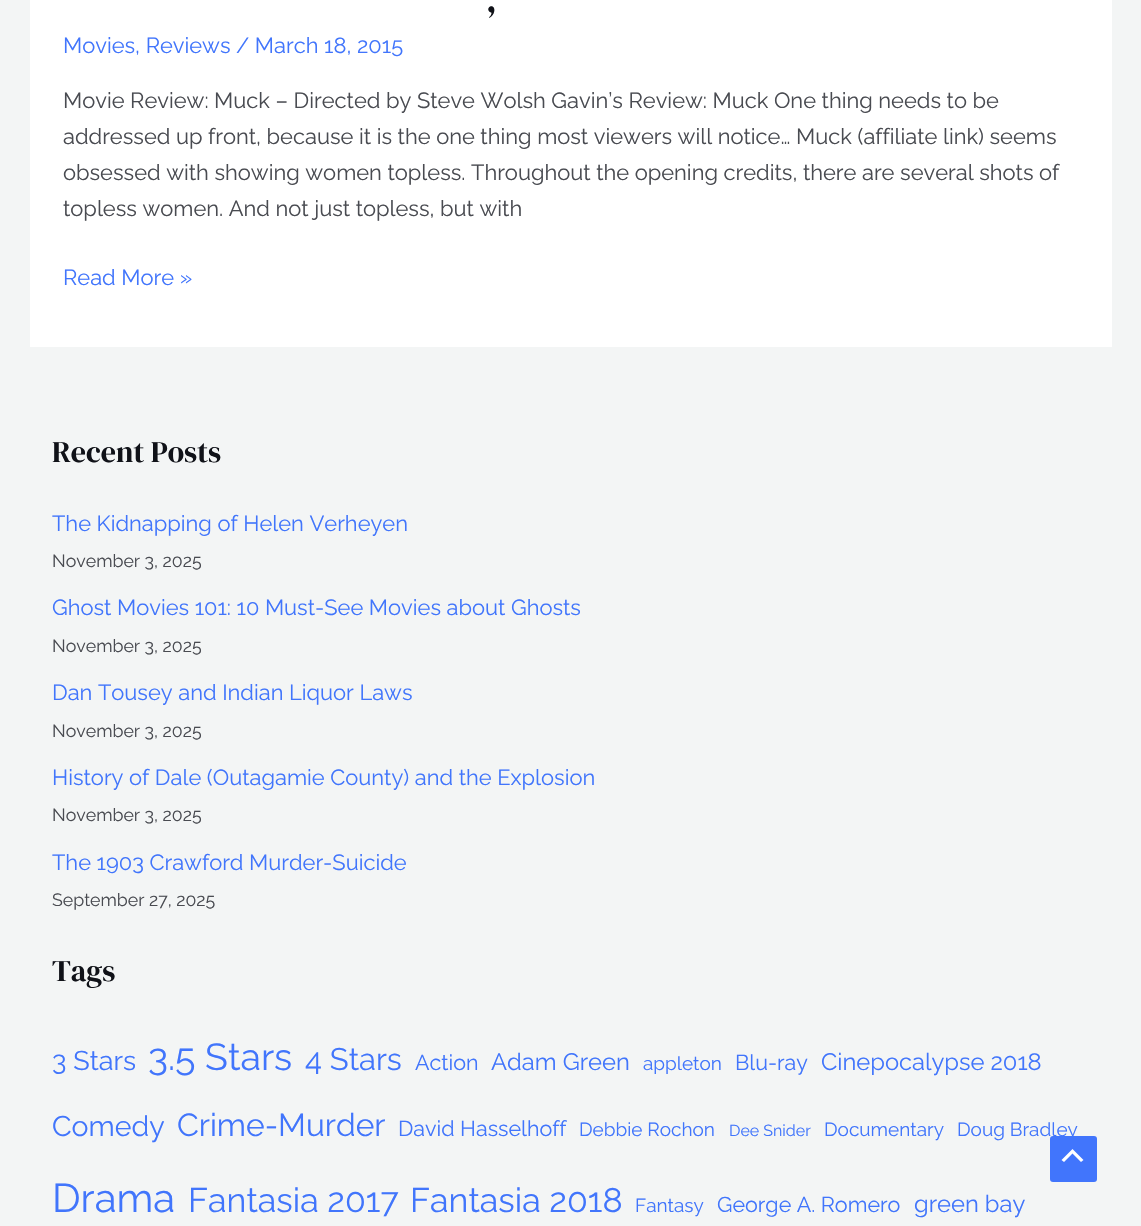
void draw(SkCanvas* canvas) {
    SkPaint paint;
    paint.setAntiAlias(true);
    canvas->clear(0xFFF3F5F5);
    paint.setColor(0xFFFFFFFF);
    canvas->drawRect(SkRect::MakeXYWH(30, 0, 1082, 347), paint);
    SkFont font1(fontMgr->matchFamilyStyle("DM Serif Display", SkFontStyle::Normal()), 36);
    font1.setSubpixel(true);
    paint.setColor(0xFF101218);
    canvas->drawString(",", 486, 12, font1, paint);
    SkFont font2(fontMgr->matchFamilyStyle("Raleway", SkFontStyle::Normal()), 21.9f);
    font2.setSubpixel(true);
    paint.setColor(0xFF4175FC);
    canvas->drawString("Movies, Reviews / March 18, 2015", 63, 53, font2, paint);
    paint.setColor(0xFF494B51);
    canvas->drawString("Movie Review: Muck – Directed by Steve Wolsh Gavin’s Review: Muck One thing needs to be", 63, 108, font2, paint);
    canvas->drawString("addressed up front, because it is the one thing most viewers will notice… Muck (affiliate link) seems", 63, 144, font2, paint);
    canvas->drawString("obsessed with showing women topless. Throughout the opening credits, there are several shots of", 63, 180, font2, paint);
    canvas->drawString("topless women. And not just topless, but with", 63, 216, font2, paint);
    paint.setColor(0xFF4175FC);
    canvas->drawString("Read More »", 63, 285, font2, paint);
    SkFont font3(fontMgr->matchFamilyStyle("DM Serif Display", SkFontStyle::Normal()), 30);
    font3.setSubpixel(true);
    paint.setColor(0xFF101218);
    canvas->drawString("Recent Posts", 52, 462, font3, paint);
    paint.setColor(0xFF4175FC);
    canvas->drawString("The Kidnapping of Helen Verheyen", 52, 531, font2, paint);
    SkFont font4(fontMgr->matchFamilyStyle("Raleway", SkFontStyle::Normal()), 17.75f);
    font4.setSubpixel(true);
    paint.setColor(0xFF494B51);
    canvas->drawString("November 3, 2025", 52, 567, font4, paint);
    paint.setColor(0xFF4175FC);
    canvas->drawString("Ghost Movies 101: 10 Must-See Movies about Ghosts", 52, 615, font2, paint);
    paint.setColor(0xFF494B51);
    canvas->drawString("November 3, 2025", 52, 652, font4, paint);
    paint.setColor(0xFF4175FC);
    canvas->drawString("Dan Tousey and Indian Liquor Laws", 52, 700, font2, paint);
    paint.setColor(0xFF494B51);
    canvas->drawString("November 3, 2025", 52, 737, font4, paint);
    paint.setColor(0xFF4175FC);
    canvas->drawString("History of Dale (Outagamie County) and the Explosion", 52, 785, font2, paint);
    paint.setColor(0xFF494B51);
    canvas->drawString("November 3, 2025", 52, 821, font4, paint);
    paint.setColor(0xFF4175FC);
    canvas->drawString("The 1903 Crawford Murder-Suicide", 52, 870, font2, paint);
    paint.setColor(0xFF494B51);
    canvas->drawString("September 27, 2025", 52, 906, font4, paint);
    paint.setColor(0xFF101218);
    canvas->drawString("Tags", 52, 981, font3, paint);
    SkFont font5(fontMgr->matchFamilyStyle("Raleway", SkFontStyle::Normal()), 27);
    font5.setSubpixel(true);
    paint.setColor(0xFF4175FC);
    canvas->drawString("3 Stars", 52, 1070, font5, paint);
    SkFont font6(fontMgr->matchFamilyStyle("Raleway", SkFontStyle::Normal()), 37.5f);
    font6.setSubpixel(true);
    canvas->drawString("3.5 Stars", 148, 1070, font6, paint);
    SkFont font7(fontMgr->matchFamilyStyle("Raleway", SkFontStyle::Normal()), 31);
    font7.setSubpixel(true);
    canvas->drawString("4 Stars", 305, 1070, font7, paint);
    SkFont font8(fontMgr->matchFamilyStyle("Raleway", SkFontStyle::Normal()), 21.5f);
    font8.setSubpixel(true);
    canvas->drawString("Action", 415, 1070, font8, paint);
    SkFont font9(fontMgr->matchFamilyStyle("Raleway", SkFontStyle::Normal()), 23.75f);
    font9.setSubpixel(true);
    canvas->drawString("Adam Green", 491, 1070, font9, paint);
    SkFont font10(fontMgr->matchFamilyStyle("Raleway", SkFontStyle::Normal()), 19);
    font10.setSubpixel(true);
    canvas->drawString("appleton", 643, 1070, font10, paint);
    canvas->drawString("Blu-ray", 735, 1070, font8, paint);
    canvas->drawString("Cinepocalypse 2018", 821, 1070, font9, paint);
    SkFont font11(fontMgr->matchFamilyStyle("Raleway", SkFontStyle::Normal()), 28.5f);
    font11.setSubpixel(true);
    canvas->drawString("Comedy", 52, 1136, font11, paint);
    SkFont font12(fontMgr->matchFamilyStyle("Raleway", SkFontStyle::Normal()), 31.75f);
    font12.setSubpixel(true);
    canvas->drawString("Crime-Murder", 177, 1136, font12, paint);
    canvas->drawString("David Hasselhoff", 398, 1136, font8, paint);
    canvas->drawString("Debbie Rochon", 579, 1136, font10, paint);
    SkFont font13(fontMgr->matchFamilyStyle("Raleway", SkFontStyle::Normal()), 16);
    font13.setSubpixel(true);
    canvas->drawString("Dee Snider", 729, 1136, font13, paint);
    canvas->drawString("Documentary", 824, 1136, font10, paint);
    canvas->drawString("Doug Bradley", 957, 1136, font10, paint);
    SkFont font14(fontMgr->matchFamilyStyle("Raleway", SkFontStyle::Normal()), 40);
    font14.setSubpixel(true);
    canvas->drawString("Drama", 52, 1212, font14, paint);
    SkFont font15(fontMgr->matchFamilyStyle("Raleway", SkFontStyle::Normal()), 34);
    font15.setSubpixel(true);
    canvas->drawString("Fantasia 2017", 188, 1212, font15, paint);
    canvas->drawString("Fantasia 2018", 410, 1212, font15, paint);
    canvas->drawString("Fantasy", 635, 1212, font10, paint);
    canvas->drawString("George A. Romero", 717, 1212, font8, paint);
    canvas->drawString("green bay", 914, 1212, font9, paint);
    canvas->drawRoundRect(SkRect::MakeXYWH(1050, 1136, 47, 46), 3, 3, paint);
    paint.setColor(0xFFFFFFFF);
    canvas->drawPath(SkPathBuilder().moveTo(1083.5f, 1160).lineTo(1072.5f, 1149).lineTo(1061.5f, 1160).lineTo(1064, 1162).lineTo(1072.5f, 1153.5f).lineTo(1081, 1162).close().detach(), paint);
}
